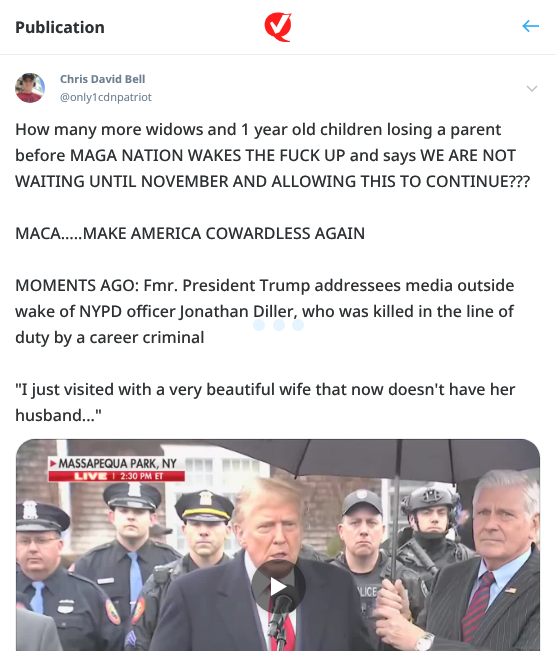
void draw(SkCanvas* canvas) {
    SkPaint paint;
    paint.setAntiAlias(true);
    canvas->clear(0xFFFFFFFF);
    paint.setColor(0xFFE9EEF2);
    canvas->drawRect(SkRect::MakeXYWH(0, 54, 556, 1), paint);
    SkFont font1(fontMgr->matchFamilyStyle("Noto Sans", SkFontStyle::Bold()), 16);
    font1.setSubpixel(true);
    paint.setColor(0xFF2E3133);
    canvas->drawString("Publication", 15, 33, font1, paint);
    canvas->drawImageRect(SkImages::DeferredFromEncodedData(SkData::MakeFromFileName("img1.png")), SkRect::MakeXYWH(264, 12, 28, 30), SkSamplingOptions());
    canvas->drawImageRect(SkImages::DeferredFromEncodedData(SkData::MakeFromFileName("img2.png")), SkRect::MakeXYWH(522, 19, 17, 14), SkSamplingOptions());
    canvas->drawImageRect(SkImages::DeferredFromEncodedData(SkData::MakeFromFileName("img3.png")), SkRect::MakeXYWH(15, 73, 30, 30), SkSamplingOptions());
    SkFont font2(fontMgr->matchFamilyStyle("Noto Sans", SkFontStyle::Bold()), 11);
    font2.setSubpixel(true);
    paint.setColor(0xFF6D8091);
    canvas->drawString("Chris David Bell", 60, 83, font2, paint);
    SkFont font3(fontMgr->matchFamilyStyle("Noto Sans", SkFontStyle::Normal()), 11);
    font3.setSubpixel(true);
    canvas->drawString("@only1cdnpatriot", 60, 101, font3, paint);
    paint.setStyle(SkPaint::kStroke_Style);
    paint.setStrokeWidth(1.4f);
    paint.setStrokeCap(SkPaint::kSquare_Cap);
    paint.setColor(0xFFBEBEBE);
    canvas->drawPath(SkPathBuilder().moveTo(527.5f, 86.5f).lineTo(532, 91).lineTo(536.5f, 86.5f).detach(), paint);
    SkFont font4(fontMgr->matchFamilyStyle("Noto Sans", SkFontStyle(500, SkFontStyle::kNormal_Width, SkFontStyle::kUpright_Slant)), 16);
    font4.setSubpixel(true);
    paint.setStyle(SkPaint::kFill_Style);
    paint.setColor(0xFF2E3133);
    canvas->drawString("How many more widows and 1 year old children losing a parent", 15, 135, font4, paint);
    canvas->drawString("before MAGA NATION WAKES THE FUCK UP and says WE ARE NOT", 15, 161, font4, paint);
    canvas->drawString("WAITING UNTIL NOVEMBER AND ALLOWING THIS TO CONTINUE?\077?", 15, 187, font4, paint);
    canvas->drawString("MACA…..MAKE AMERICA COWARDLESS AGAIN", 15, 239, font4, paint);
    canvas->drawString("MOMENTS AGO: Fmr. President Trump addressees media outside", 15, 291, font4, paint);
    canvas->drawString("wake of NYPD officer Jonathan Diller, who was killed in the line of", 15, 317, font4, paint);
    canvas->drawString("duty by a career criminal", 15, 343, font4, paint);
    canvas->drawString("\"I just visited with a very beautiful wife that now doesn't have her", 15, 395, font4, paint);
    canvas->drawString("husband...\"", 15, 421, font4, paint);
    paint.setStyle(SkPaint::kStroke_Style);
    paint.setStrokeWidth(1);
    paint.setStrokeCap(SkPaint::kButt_Cap);
    paint.setColor(0xFFE9EEF2);
    canvas->drawRoundRect(SkRect::MakeXYWH(15.5f, 438.5f, 525, 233), 19.5f, 19.5f, paint);
    canvas->drawImageRect(SkImages::DeferredFromEncodedData(SkData::MakeFromFileName("img4.png")), SkRect::MakeXYWH(16, 439, 524, 212), SkSamplingOptions());
    canvas->save();
    canvas->clipPath(SkPathBuilder(SkPathFillType::kEvenOdd).moveTo(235, 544).lineTo(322, 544).lineTo(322, 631).lineTo(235, 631).close().moveTo(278.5f, 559).cubicTo(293.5f, 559, 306, 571.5f, 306, 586.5f).cubicTo(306, 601.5f, 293.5f, 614, 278.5f, 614).cubicTo(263.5f, 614, 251, 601.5f, 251, 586.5f).cubicTo(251, 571.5f, 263.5f, 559, 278.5f, 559).close().detach(), true);
    paint.setStyle(SkPaint::kFill_Style);
    paint.setColor(0x261C1C1C);
    paint.setMaskFilter(SkMaskFilter::MakeBlur(kNormal_SkBlurStyle, 5));
    canvas->drawRoundRect(SkRect::MakeXYWH(251, 560, 55, 55), 27.5f, 27.5f, paint);
    paint.setMaskFilter(nullptr);
    canvas->restore();
    paint.setColor(0x991C1C1C);
    canvas->drawCircle(278.5f, 586.5f, 27.5f, paint);
    paint.setColor(0xFFFFFFFF);
    canvas->drawPath(SkPathBuilder().moveTo(287, 586.5f).lineTo(271, 596).lineTo(271, 577).close().detach(), paint);
    paint.setColor(0xFFE5F4FE);
    canvas->drawCircle(259, 325, 6, paint);
    canvas->drawCircle(279, 325, 6, paint);
    canvas->drawCircle(298, 325, 6, paint);
}
